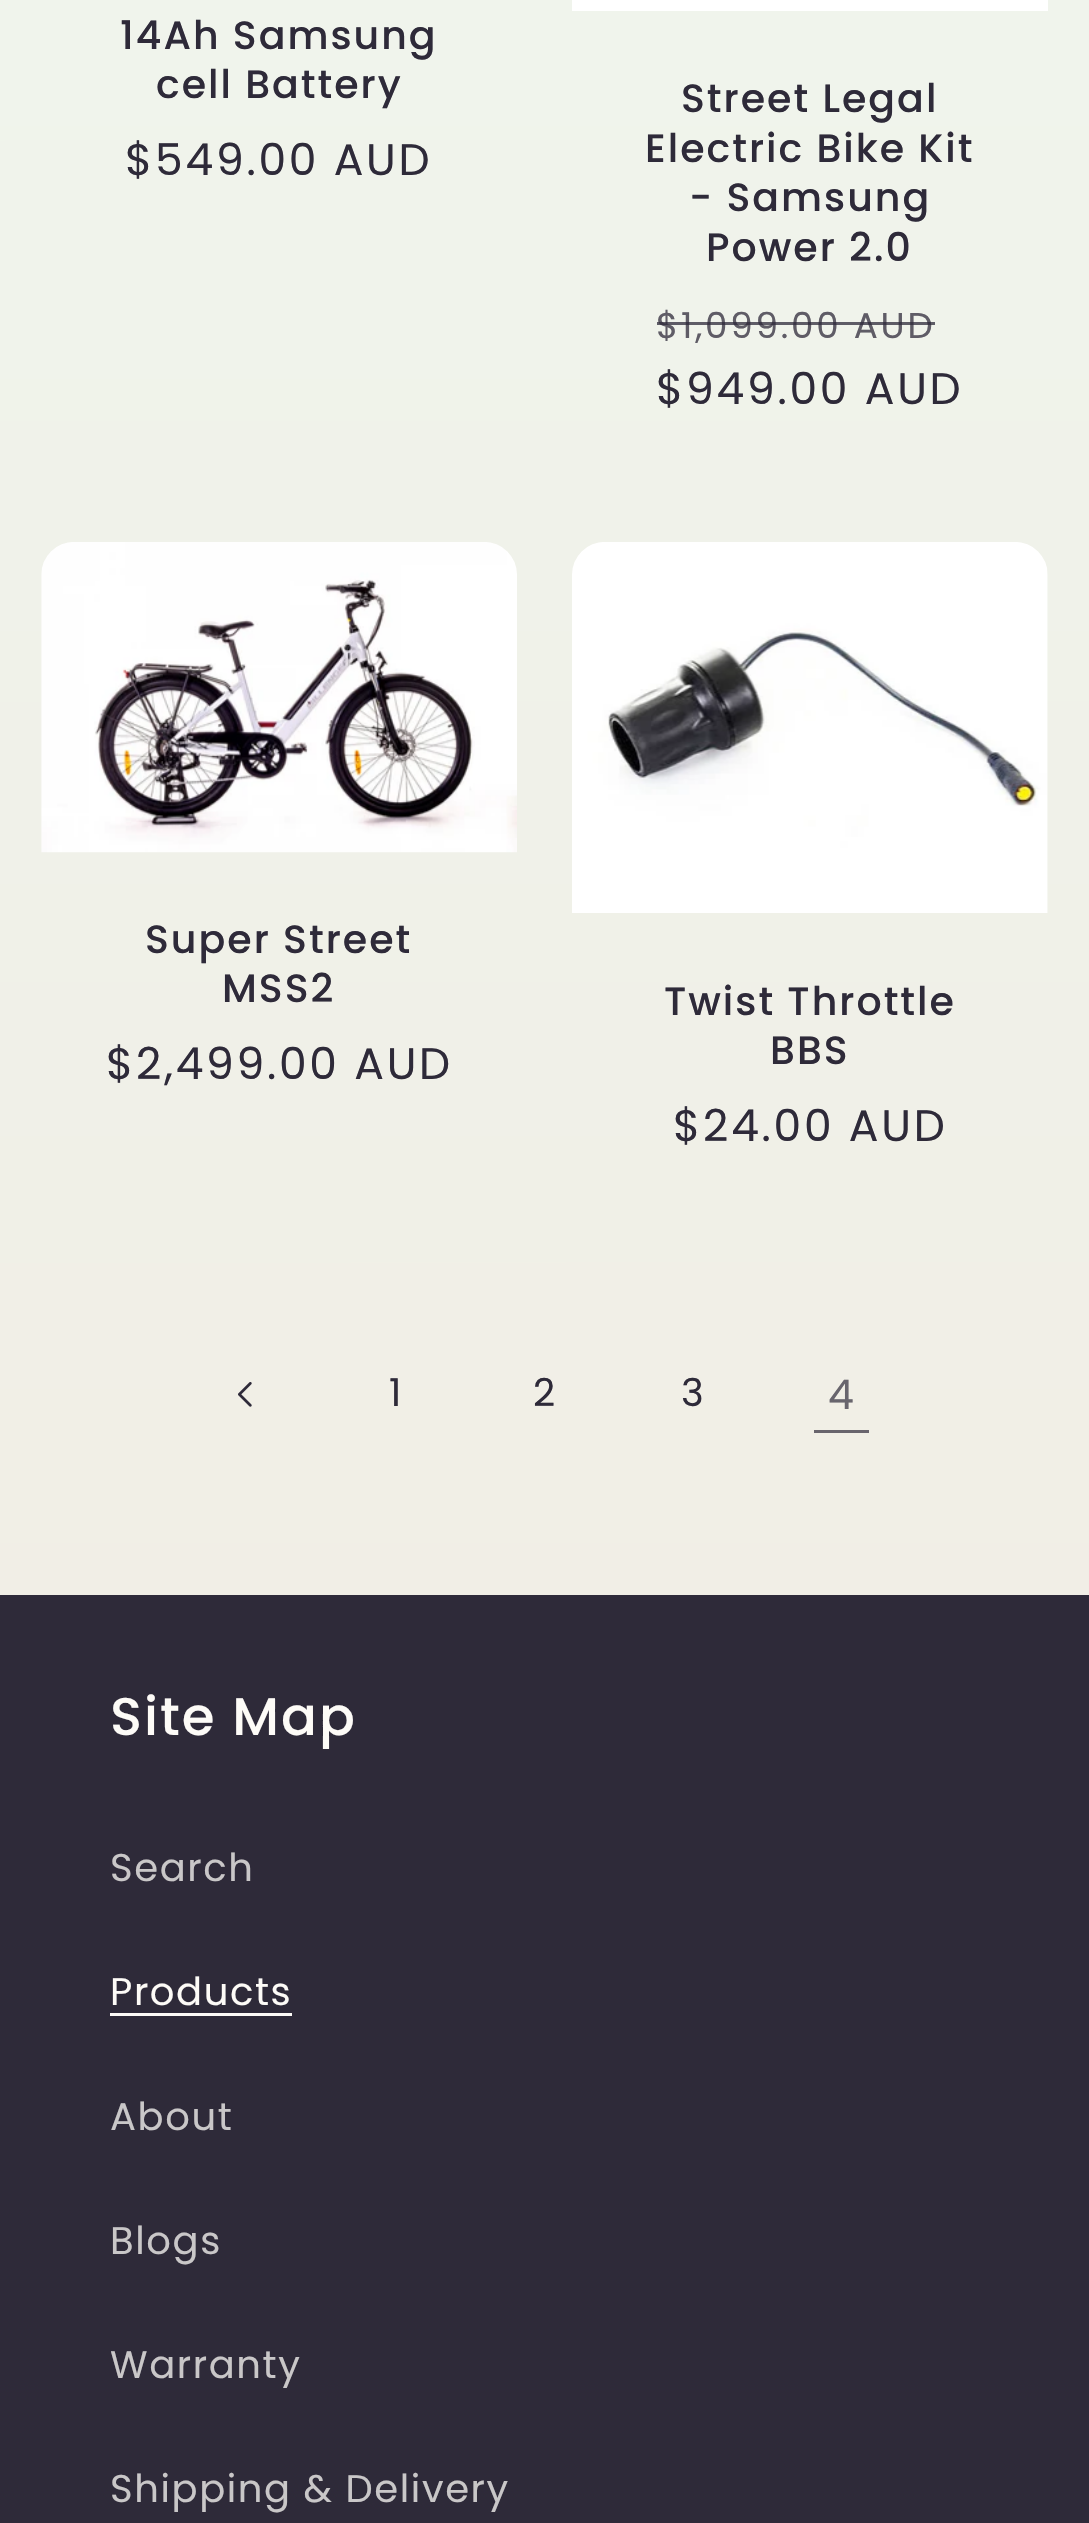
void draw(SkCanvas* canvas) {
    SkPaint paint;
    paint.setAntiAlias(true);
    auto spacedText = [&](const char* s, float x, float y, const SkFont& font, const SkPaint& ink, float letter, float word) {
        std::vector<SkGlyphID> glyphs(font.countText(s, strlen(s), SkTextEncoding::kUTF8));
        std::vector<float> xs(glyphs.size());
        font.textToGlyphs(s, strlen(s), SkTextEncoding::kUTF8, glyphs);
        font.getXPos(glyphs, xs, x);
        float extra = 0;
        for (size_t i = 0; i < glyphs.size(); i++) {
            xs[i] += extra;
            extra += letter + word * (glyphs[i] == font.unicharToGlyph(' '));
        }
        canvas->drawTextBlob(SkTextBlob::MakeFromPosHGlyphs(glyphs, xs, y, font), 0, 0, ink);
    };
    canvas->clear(0xFFFFFFFF);
    {
        const SkColor colors[] = {0xFFF0F4EC, 0xFFF1EBE2};
        const float stops[] = {0, 1};
        const SkPoint ends[] = {{544, 0}, {545, 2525}};
        paint.setShader(SkGradientShader::MakeLinear(ends, colors, stops, 2, SkTileMode::kClamp));
        paint.setAlpha(255);
    }
    canvas->drawRect(SkRect::MakeXYWH(0, 0, 1089, 1595), paint);
    SkFont font1(fontMgr->matchFamilyStyle("Poppins", SkFontStyle(500, SkFontStyle::kNormal_Width, SkFontStyle::kUpright_Slant)), 39.5f);
    font1.setSubpixel(true);
    paint.setShader(nullptr);
    paint.setColor(0xFF2E2A39);
    spacedText("14Ah Samsung", 120, 49, font1, paint, 2, 0);
    spacedText("cell Battery", 156, 98, font1, paint, 2, 0);
    SkFont font2(fontMgr->matchFamilyStyle("Poppins", SkFontStyle::Normal()), 44);
    font2.setSubpixel(true);
    spacedText("$549.00 AUD", 125, 175, font2, paint, 2.75f, 0);
    paint.setColor(0xFFFFFFFF);
    canvas->drawRect(SkRect::MakeXYWH(572, 0, 476, 11), paint);
    paint.setColor(0xFF2E2A39);
    spacedText("Street Legal", 681, 112, font1, paint, 2, 0);
    spacedText("Electric Bike Kit", 645, 162, font1, paint, 2, 0);
    spacedText("- Samsung", 689, 211, font1, paint, 2, 0);
    spacedText("Power 2.0", 706, 261, font1, paint, 2, 0);
    SkFont font3(fontMgr->matchFamilyStyle("Poppins", SkFontStyle::Normal()), 35.75f);
    font3.setSubpixel(true);
    paint.setColor(0xFF5F5C66);
    spacedText("$1,099.00 AUD", 656, 338, font3, paint, 2.75f, 0);
    paint.setColor(0xBF2E2A39);
    canvas->drawRect(SkRect::MakeXYWH(657, 322, 278, 3), paint);
    paint.setColor(0xFF2E2A39);
    spacedText("$949.00 AUD", 656, 404, font2, paint, 2.75f, 0);
    canvas->drawImageRect(SkImages::DeferredFromEncodedData(SkData::MakeFromFileName("img1.png")), SkRect::MakeXYWH(41, 542, 476, 311), SkSamplingOptions());
    spacedText("Super Street", 145, 953, font1, paint, 2, 0);
    spacedText("MSS2", 222, 1002, font1, paint, 2, 0);
    spacedText("$2,499.00 AUD", 106, 1079, font2, paint, 2.75f, 0);
    canvas->drawImageRect(SkImages::DeferredFromEncodedData(SkData::MakeFromFileName("img2.png")), SkRect::MakeXYWH(572, 542, 476, 371), SkSamplingOptions());
    spacedText("Twist Throttle", 664, 1015, font1, paint, 2, 0);
    spacedText("BBS", 770, 1064, font1, paint, 2, 0);
    spacedText("$24.00 AUD", 673, 1141, font2, paint, 2.75f, 0);
    canvas->drawImageRect(SkImages::DeferredFromEncodedData(SkData::MakeFromFileName("img3.png")), SkRect::MakeXYWH(238, 1382, 14, 25), SkSamplingOptions());
    SkFont font4(fontMgr->matchFamilyStyle("Poppins", SkFontStyle::Normal()), 38.5f);
    font4.setSubpixel(true);
    spacedText("1", 389, 1406, font4, paint, 1.6f, 0);
    spacedText("2", 533, 1406, font4, paint, 1.6f, 0);
    spacedText("3", 681, 1406, font4, paint, 1.6f, 0);
    SkFont font5(fontMgr->matchFamilyStyle("Poppins", SkFontStyle::Normal()), 41);
    font5.setSubpixel(true);
    paint.setColor(0xFF68656D);
    spacedText("4", 828, 1409, font5, paint, 1.6f, 0);
    paint.setColor(0xFF69656D);
    canvas->drawRect(SkRect::MakeXYWH(814, 1430, 55, 3), paint);
    paint.setColor(0xFF2E2A39);
    canvas->drawRect(SkRect::MakeXYWH(0, 1595, 1089, 928), paint);
    SkFont font6(fontMgr->matchFamilyStyle("Poppins", SkFontStyle(500, SkFontStyle::kNormal_Width, SkFontStyle::kUpright_Slant)), 53);
    font6.setSubpixel(true);
    paint.setColor(0xFFFDFBF7);
    spacedText("Site Map", 110, 1735, font6, paint, 2, 0);
    paint.setColor(0xFFC9C7C8);
    spacedText("Search", 110, 1881, font4, paint, 1.6f, 0);
    paint.setColor(0xFFFDFBF7);
    spacedText("Products", 110, 2005, font4, paint, 1.6f, 0);
    canvas->drawRect(SkRect::MakeXYWH(110, 2013, 182, 3), paint);
    paint.setColor(0xFFC9C7C8);
    spacedText("About", 110, 2130, font4, paint, 1.6f, 0);
    spacedText("Blogs", 110, 2254, font4, paint, 1.6f, 0);
    spacedText("Warranty", 110, 2378, font4, paint, 1.6f, 0);
    spacedText("Shipping & Delivery", 110, 2502, font4, paint, 1.6f, 0);
}
